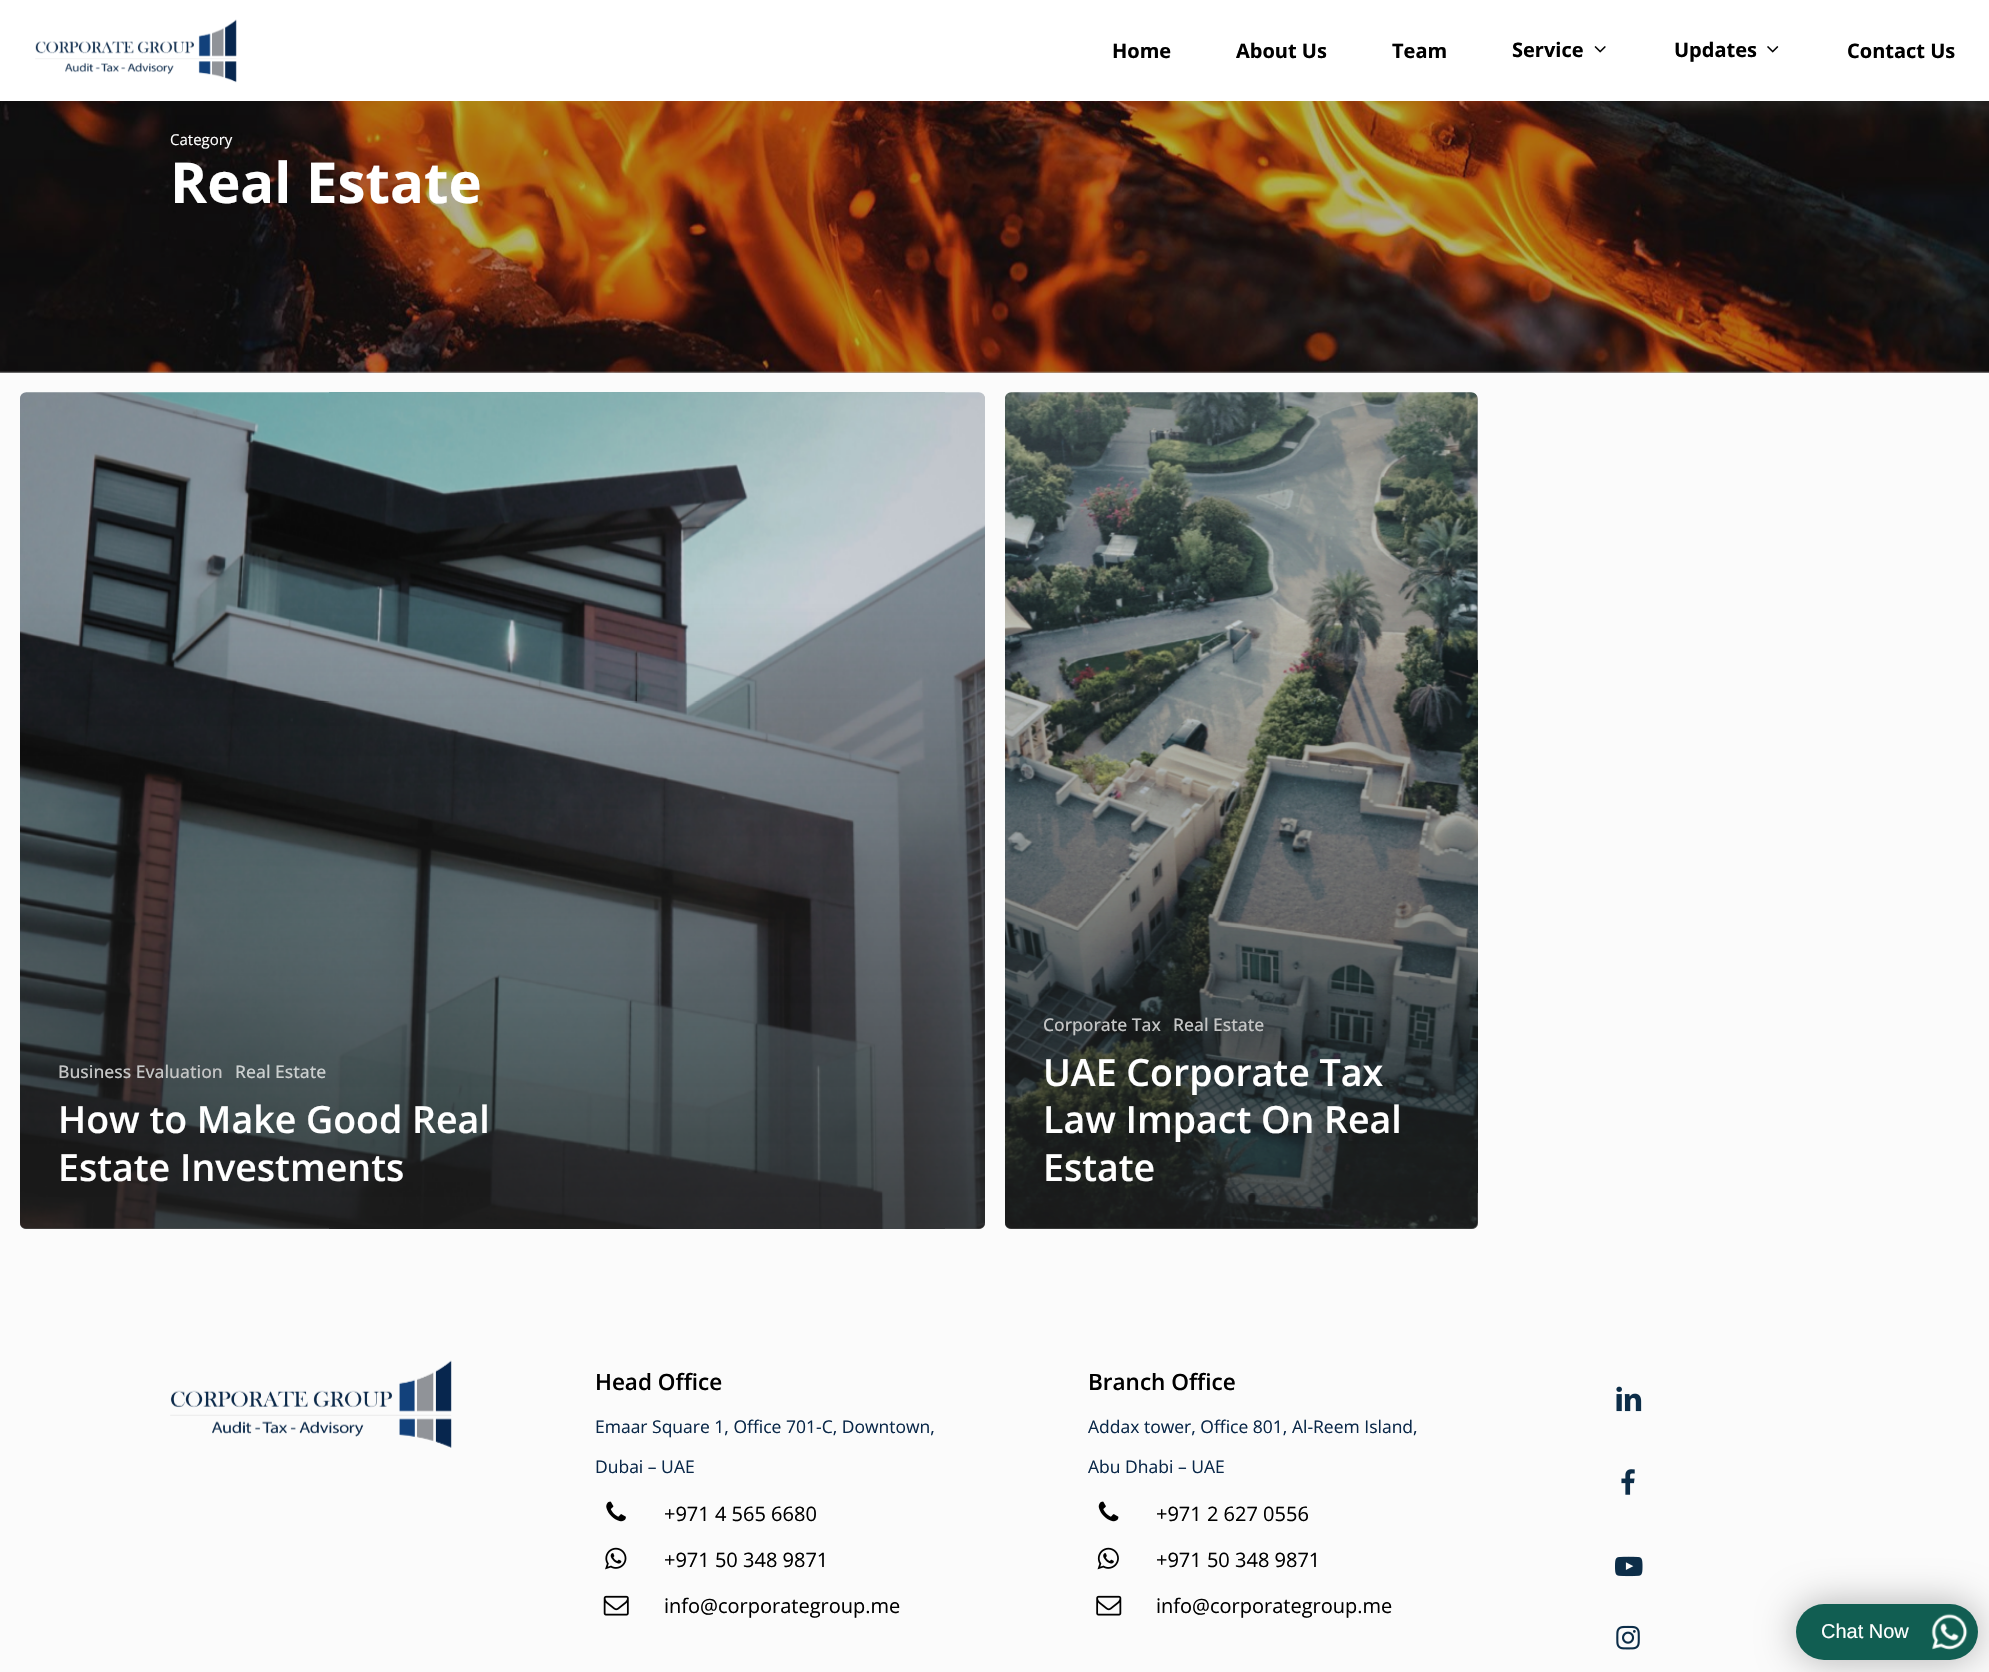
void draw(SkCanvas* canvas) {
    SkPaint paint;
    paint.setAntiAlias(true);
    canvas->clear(0xFFFBFBFB);
    paint.setColor(0xFFACACAC);
    canvas->drawRect(SkRect::MakeXYWH(0, 371, 1989, 2), paint);
    paint.setColor(0xFFFFFFFF);
    canvas->drawRect(SkRect::MakeXYWH(0, 0, 1989, 101), paint);
    canvas->drawImageRect(SkImages::DeferredFromEncodedData(SkData::MakeFromFileName("img1.png")), SkRect::MakeXYWH(35, 19, 202, 64), SkSamplingOptions());
    SkFont font1(fontMgr->matchFamilyStyle("Open Sans", SkFontStyle::Bold()), 20);
    font1.setSubpixel(true);
    paint.setColor(0xFF000000);
    canvas->drawString("Home", 1112, 58, font1, paint);
    canvas->drawString("About Us", 1236, 58, font1, paint);
    canvas->drawString("Team", 1392, 58, font1, paint);
    canvas->drawString("Service", 1512, 57, font1, paint);
    canvas->drawImageRect(SkImages::DeferredFromEncodedData(SkData::MakeFromFileName("img2.png")), SkRect::MakeXYWH(1594, 46, 12, 7), SkSamplingOptions());
    canvas->drawString("Updates", 1674, 57, font1, paint);
    canvas->drawImageRect(SkImages::DeferredFromEncodedData(SkData::MakeFromFileName("img3.png")), SkRect::MakeXYWH(1767, 46, 12, 7), SkSamplingOptions());
    canvas->drawString("Contact Us", 1847, 58, font1, paint);
    canvas->drawImageRect(SkImages::DeferredFromEncodedData(SkData::MakeFromFileName("img4.png")), SkRect::MakeXYWH(0, 101, 1989, 272), SkSamplingOptions());
    SkFont font2(fontMgr->matchFamilyStyle("Open Sans", SkFontStyle::Normal()), 15);
    font2.setSubpixel(true);
    paint.setColor(0xFFFFFFFF);
    canvas->drawString("Category", 170, 145, font2, paint);
    SkFont font3(fontMgr->matchFamilyStyle("Open Sans", SkFontStyle::Bold()), 56.25f);
    font3.setSubpixel(true);
    canvas->drawString("Real Estate", 170, 203, font3, paint);
    paint.setColor(0xFFB0B0B0);
    canvas->drawRoundRect(SkRect::MakeXYWH(20, 393, 965, 836), 6, 6, paint);
    canvas->drawImageRect(SkImages::DeferredFromEncodedData(SkData::MakeFromFileName("img5.png")), SkRect::MakeXYWH(20, 392, 965, 837), SkSamplingOptions());
    {
        const SkColor colors[] = {0x00232323, 0xA6232323};
        const float stops[] = {0, 1};
        const SkPoint ends[] = {{505, 602}, {505, 1233}};
        paint.setShader(SkGradientShader::MakeLinear(ends, colors, stops, 2, SkTileMode::kClamp));
        paint.setAlpha(255);
    }
    canvas->drawPath(SkPathBuilder().moveTo(20, 603).lineTo(985, 603).lineTo(985, 1223).cubicTo(985, 1226.5f, 982.5f, 1229, 979, 1229).lineTo(26, 1229).cubicTo(22.5f, 1229, 20, 1226.5f, 20, 1223).close().detach(), paint);
    SkFont font4(fontMgr->matchFamilyStyle("Open Sans", SkFontStyle(500, SkFontStyle::kNormal_Width, SkFontStyle::kUpright_Slant)), 17.5f);
    font4.setSubpixel(true);
    paint.setShader(nullptr);
    paint.setColor(0xFFC5C6C6);
    canvas->drawString("Business Evaluation", 58, 1078, font4, paint);
    paint.setColor(0xFFCBCFCF);
    canvas->drawString("Real Estate", 235, 1078, font4, paint);
    SkFont font5(fontMgr->matchFamilyStyle("Open Sans", SkFontStyle(600, SkFontStyle::kNormal_Width, SkFontStyle::kUpright_Slant)), 37.5f);
    font5.setSubpixel(true);
    paint.setColor(0xFFFFFFFF);
    canvas->drawString("How to Make Good Real", 58, 1133, font5, paint);
    canvas->drawString("Estate Investments", 58, 1181, font5, paint);
    paint.setColor(0xFFAFAFAF);
    canvas->drawRoundRect(SkRect::MakeXYWH(1005, 393, 473, 836), 6, 6, paint);
    canvas->drawImageRect(SkImages::DeferredFromEncodedData(SkData::MakeFromFileName("img6.png")), SkRect::MakeXYWH(1005, 392, 473, 837), SkSamplingOptions());
    {
        const SkColor colors[] = {0x00232323, 0xA6232323};
        const float stops[] = {0, 1};
        const SkPoint ends[] = {{1243, 603}, {1243, 1233}};
        paint.setShader(SkGradientShader::MakeLinear(ends, colors, stops, 2, SkTileMode::kClamp));
        paint.setAlpha(255);
    }
    canvas->drawPath(SkPathBuilder().moveTo(1005, 603).lineTo(1478, 603).lineTo(1478, 1223).cubicTo(1478, 1226.5f, 1475.5f, 1229, 1472, 1229).lineTo(1011, 1229).cubicTo(1007.5f, 1229, 1005, 1226.5f, 1005, 1223).close().detach(), paint);
    paint.setShader(nullptr);
    paint.setColor(0xFFC5C6C6);
    canvas->drawString("Corporate Tax", 1043, 1031, font4, paint);
    canvas->drawString("Real Estate", 1173, 1031, font4, paint);
    paint.setColor(0xFFFFFFFF);
    canvas->drawString("UAE Corporate Tax", 1043, 1086, font5, paint);
    canvas->drawString("Law Impact On Real", 1043, 1133, font5, paint);
    canvas->drawString("Estate", 1043, 1181, font5, paint);
    canvas->drawImageRect(SkImages::DeferredFromEncodedData(SkData::MakeFromFileName("img7.png")), SkRect::MakeXYWH(170, 1360, 282, 88), SkSamplingOptions());
    SkFont font6(fontMgr->matchFamilyStyle("Open Sans", SkFontStyle(600, SkFontStyle::kNormal_Width, SkFontStyle::kUpright_Slant)), 22.5f);
    font6.setSubpixel(true);
    paint.setColor(0xFF000000);
    canvas->drawString("Head Office", 595, 1390, font6, paint);
    SkFont font7(fontMgr->matchFamilyStyle("Open Sans", SkFontStyle::Normal()), 17.5f);
    font7.setSubpixel(true);
    paint.setColor(0xFF0A2849);
    canvas->drawString("Emaar Square 1, Office 701-C, Downtown,", 595, 1433, font7, paint);
    canvas->drawString("Dubai – UAE", 595, 1473, font7, paint);
    canvas->drawImageRect(SkImages::DeferredFromEncodedData(SkData::MakeFromFileName("img8.png")), SkRect::MakeXYWH(606, 1501, 20, 21), SkSamplingOptions());
    SkFont font8(fontMgr->matchFamilyStyle("Open Sans", SkFontStyle::Normal()), 20);
    font8.setSubpixel(true);
    paint.setColor(0xFF000000);
    canvas->drawString("+971 4 565 6680", 664, 1521, font8, paint);
    canvas->drawImageRect(SkImages::DeferredFromEncodedData(SkData::MakeFromFileName("img9.png")), SkRect::MakeXYWH(605, 1547, 22, 23), SkSamplingOptions());
    canvas->drawString("+971 50 348 9871", 664, 1567, font8, paint);
    canvas->drawImageRect(SkImages::DeferredFromEncodedData(SkData::MakeFromFileName("img10.png")), SkRect::MakeXYWH(603, 1595, 26, 21), SkSamplingOptions());
    canvas->drawString("info@corporategroup.me", 664, 1613, font8, paint);
    canvas->drawString("Branch Office", 1088, 1390, font6, paint);
    paint.setColor(0xFF0A2849);
    canvas->drawString("Addax tower, Office 801, Al-Reem Island,", 1088, 1433, font7, paint);
    canvas->drawString("Abu Dhabi – UAE", 1088, 1473, font7, paint);
    canvas->drawImageRect(SkImages::DeferredFromEncodedData(SkData::MakeFromFileName("img11.png")), SkRect::MakeXYWH(1098, 1501, 21, 21), SkSamplingOptions());
    paint.setColor(0xFF000000);
    canvas->drawString("+971 2 627 0556", 1156, 1521, font8, paint);
    canvas->drawImageRect(SkImages::DeferredFromEncodedData(SkData::MakeFromFileName("img12.png")), SkRect::MakeXYWH(1097, 1547, 22, 23), SkSamplingOptions());
    canvas->drawString("+971 50 348 9871", 1156, 1567, font8, paint);
    canvas->drawImageRect(SkImages::DeferredFromEncodedData(SkData::MakeFromFileName("img13.png")), SkRect::MakeXYWH(1096, 1595, 26, 21), SkSamplingOptions());
    canvas->drawString("info@corporategroup.me", 1156, 1613, font8, paint);
    canvas->drawImageRect(SkImages::DeferredFromEncodedData(SkData::MakeFromFileName("img14.png")), SkRect::MakeXYWH(1616, 1386, 26, 26), SkSamplingOptions());
    canvas->drawImageRect(SkImages::DeferredFromEncodedData(SkData::MakeFromFileName("img15.png")), SkRect::MakeXYWH(1621, 1469, 14, 26), SkSamplingOptions());
    canvas->drawImageRect(SkImages::DeferredFromEncodedData(SkData::MakeFromFileName("img16.png")), SkRect::MakeXYWH(1615, 1556, 28, 21), SkSamplingOptions());
    canvas->drawImageRect(SkImages::DeferredFromEncodedData(SkData::MakeFromFileName("img17.png")), SkRect::MakeXYWH(1616, 1625, 24, 25), SkSamplingOptions());
    paint.setColor(0x4D000000);
    paint.setMaskFilter(SkMaskFilter::MakeBlur(kNormal_SkBlurStyle, 19));
    canvas->drawRoundRect(SkRect::MakeXYWH(1796, 1604, 182, 56), 28, 28, paint);
    paint.setMaskFilter(nullptr);
    paint.setColor(0xFF115E52);
    canvas->drawRoundRect(SkRect::MakeXYWH(1796, 1604, 182, 56), 28, 28, paint);
    SkFont font9(fontMgr->matchFamilyStyle("Liberation Sans", SkFontStyle::Normal()), 20);
    font9.setSubpixel(true);
    paint.setColor(0xFFFFFFFF);
    canvas->drawString("Chat Now", 1821, 1638, font9, paint);
    canvas->drawImageRect(SkImages::DeferredFromEncodedData(SkData::MakeFromFileName("img18.png")), SkRect::MakeXYWH(1931, 1613, 37, 37), SkSamplingOptions());
}
